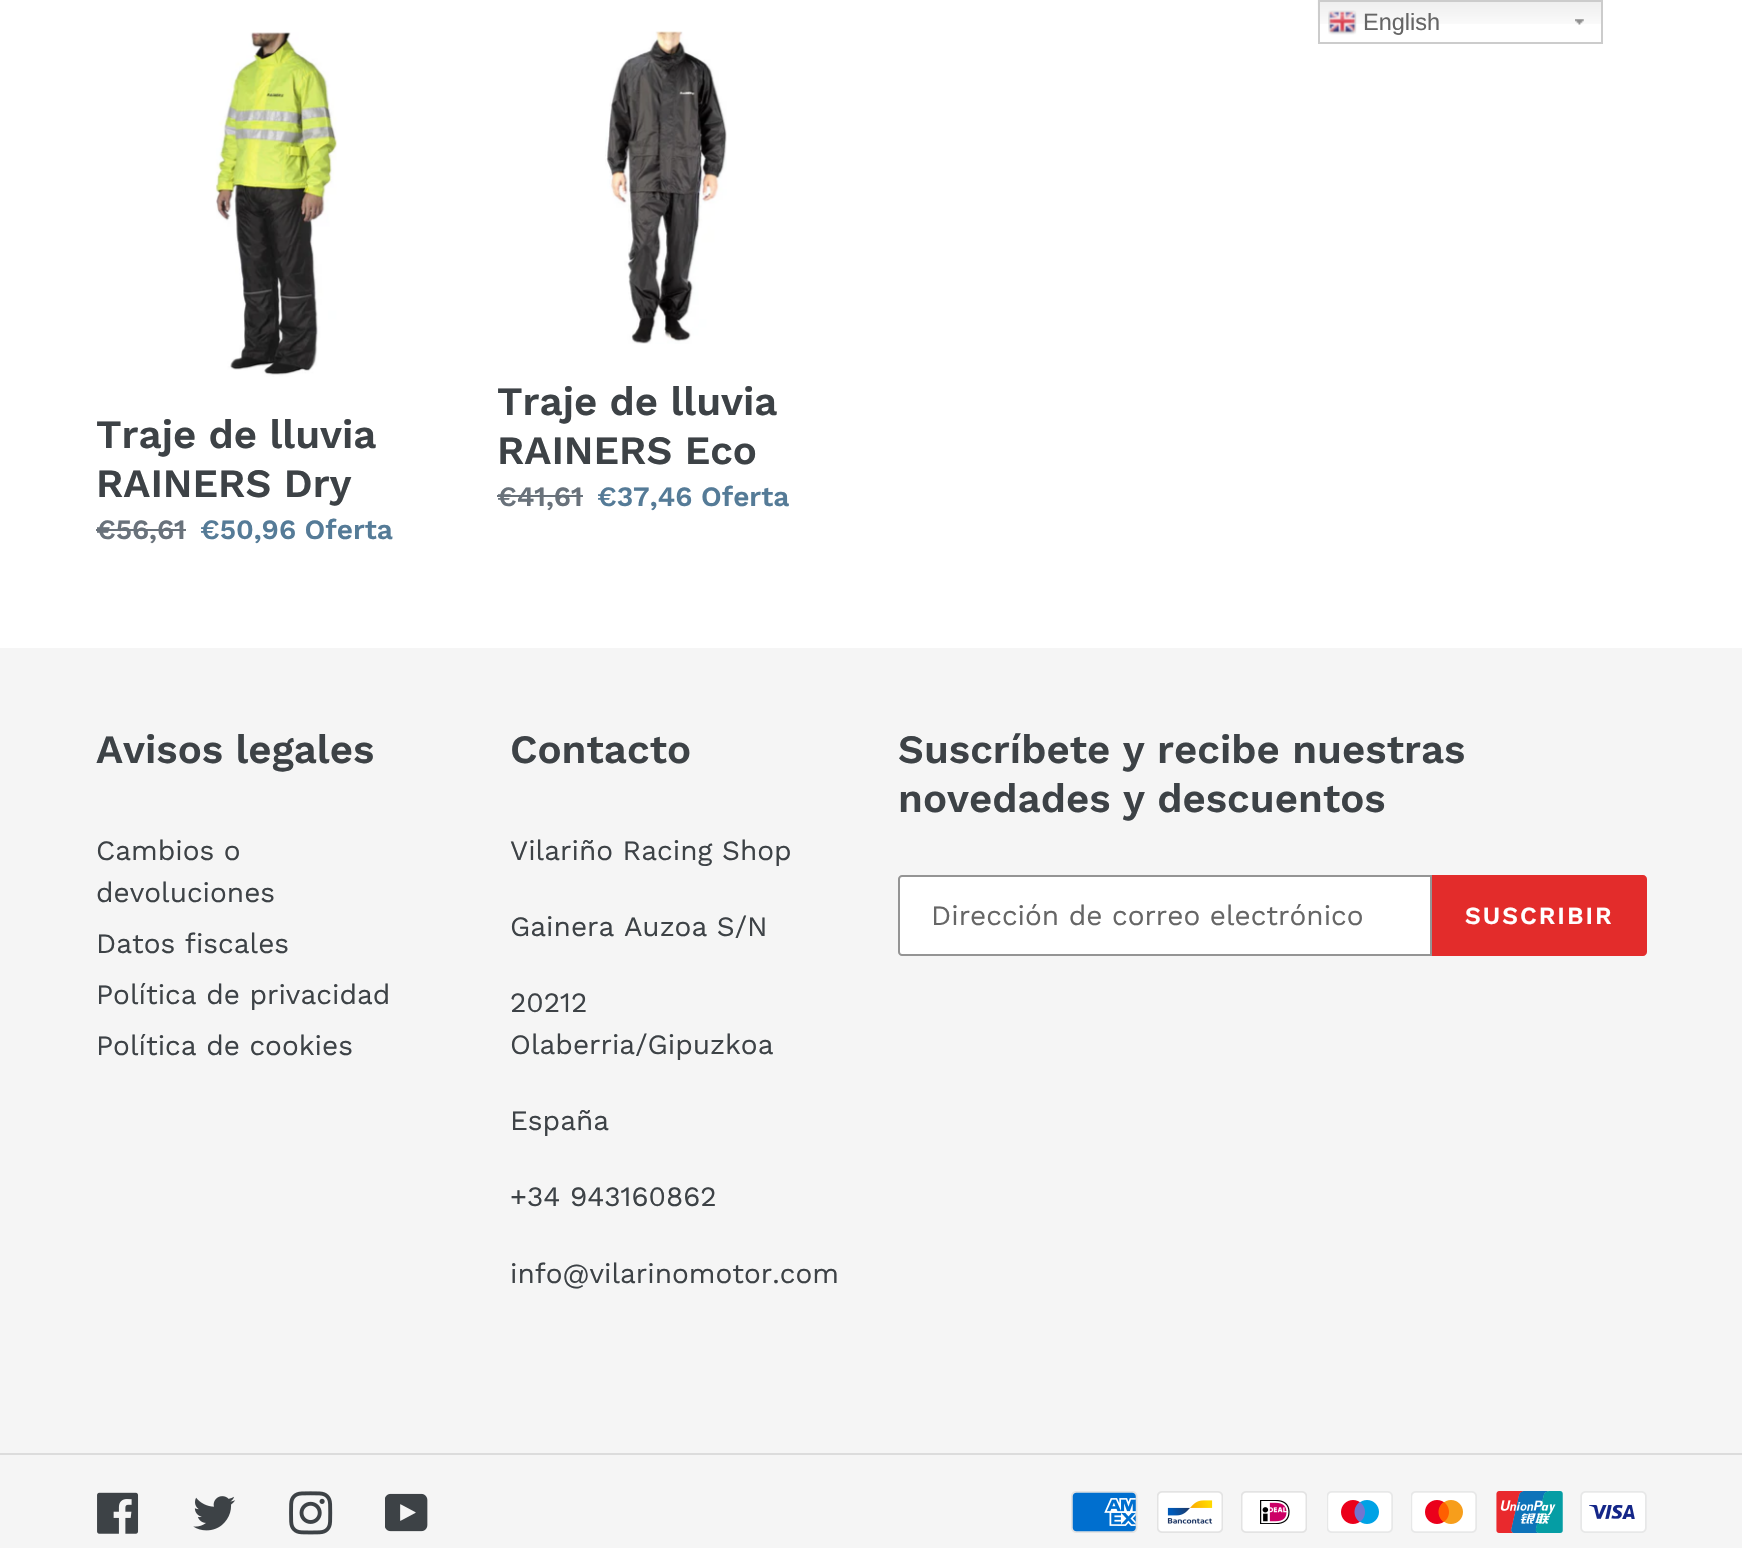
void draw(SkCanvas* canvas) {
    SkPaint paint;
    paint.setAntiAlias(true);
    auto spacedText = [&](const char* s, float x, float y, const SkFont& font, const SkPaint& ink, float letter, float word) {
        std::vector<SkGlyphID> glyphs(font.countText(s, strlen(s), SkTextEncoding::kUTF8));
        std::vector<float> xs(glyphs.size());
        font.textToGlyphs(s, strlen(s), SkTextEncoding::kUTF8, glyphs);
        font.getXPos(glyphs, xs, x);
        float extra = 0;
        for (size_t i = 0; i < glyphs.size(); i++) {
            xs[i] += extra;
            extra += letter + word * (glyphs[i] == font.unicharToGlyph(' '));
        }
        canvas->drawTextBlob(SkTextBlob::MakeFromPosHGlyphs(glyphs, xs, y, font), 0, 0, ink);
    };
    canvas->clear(0xFFFFFFFF);
    canvas->drawImageRect(SkImages::DeferredFromEncodedData(SkData::MakeFromFileName("img1.png")), SkRect::MakeXYWH(1317, 0, 284, 24), SkSamplingOptions());
    canvas->drawImageRect(SkImages::DeferredFromEncodedData(SkData::MakeFromFileName("img2.png")), SkRect::MakeXYWH(1575, 19, 9, 6), SkSamplingOptions());
    paint.setStyle(SkPaint::kStroke_Style);
    paint.setStrokeWidth(2);
    paint.setColor(0xFFCCCCCC);
    canvas->drawRect(SkRect::MakeXYWH(1319, 1, 283, 42), paint);
    canvas->drawImageRect(SkImages::DeferredFromEncodedData(SkData::MakeFromFileName("img3.png")), SkRect::MakeXYWH(1328, 10, 29, 25), SkSamplingOptions());
    SkFont font1(fontMgr->matchFamilyStyle("Liberation Sans", SkFontStyle::Normal()), 23.5f);
    font1.setSubpixel(true);
    paint.setStyle(SkPaint::kFill_Style);
    paint.setColor(0xFF666666);
    canvas->drawString("English", 1363, 30, font1, paint);
    canvas->drawImageRect(SkImages::DeferredFromEncodedData(SkData::MakeFromFileName("img4.png")), SkRect::MakeXYWH(215, 32, 123, 345), SkSamplingOptions());
    SkFont font2(fontMgr->matchFamilyStyle("Work Sans", SkFontStyle(600, SkFontStyle::kNormal_Width, SkFontStyle::kUpright_Slant)), 40.25f);
    font2.setSubpixel(true);
    paint.setColor(0xFF3D4246);
    canvas->drawString("Traje de lluvia", 96, 448, font2, paint);
    canvas->drawString("RAINERS Dry", 96, 497, font2, paint);
    SkFont font3(fontMgr->matchFamilyStyle("Work Sans", SkFontStyle(600, SkFontStyle::kNormal_Width, SkFontStyle::kUpright_Slant)), 28);
    font3.setSubpixel(true);
    paint.setColor(0xFF69727B);
    canvas->drawString("€56,61", 96, 539, font3, paint);
    canvas->drawRect(SkRect::MakeXYWH(96, 529, 90, 2), paint);
    paint.setColor(0xFF557B97);
    canvas->drawString("€50,96 Oferta", 200, 539, font3, paint);
    canvas->drawImageRect(SkImages::DeferredFromEncodedData(SkData::MakeFromFileName("img5.png")), SkRect::MakeXYWH(605, 31, 122, 313), SkSamplingOptions());
    paint.setColor(0xFF3D4246);
    canvas->drawString("Traje de lluvia", 497, 415, font2, paint);
    canvas->drawString("RAINERS Eco", 497, 464, font2, paint);
    paint.setColor(0xFF69727B);
    canvas->drawString("€41,61", 497, 506, font3, paint);
    canvas->drawRect(SkRect::MakeXYWH(497, 495, 86, 2), paint);
    paint.setColor(0xFF557B97);
    canvas->drawString("€37,46 Oferta", 597, 506, font3, paint);
    paint.setColor(0xFFF5F5F5);
    canvas->drawRect(SkRect::MakeXYWH(0, 648, 1742, 900), paint);
    paint.setColor(0xFF3D4246);
    canvas->drawString("Avisos legales", 96, 763, font2, paint);
    SkFont font4(fontMgr->matchFamilyStyle("Work Sans", SkFontStyle::Normal()), 28);
    font4.setSubpixel(true);
    canvas->drawString("Cambios o", 96, 860, font4, paint);
    canvas->drawString("devoluciones", 96, 902, font4, paint);
    canvas->drawString("Datos fiscales", 96, 953, font4, paint);
    canvas->drawString("Política de privacidad", 96, 1004, font4, paint);
    canvas->drawString("Política de cookies", 96, 1055, font4, paint);
    canvas->drawString("Contacto", 510, 763, font2, paint);
    canvas->drawString("Vilariño Racing Shop", 510, 860, font4, paint);
    canvas->drawString("Gainera Auzoa S/N", 510, 936, font4, paint);
    canvas->drawString("20212", 510, 1012, font4, paint);
    canvas->drawString("Olaberria/Gipuzkoa", 510, 1054, font4, paint);
    canvas->drawString("España", 510, 1130, font4, paint);
    canvas->drawString("+34 943160862", 510, 1206, font4, paint);
    canvas->drawString("info@vilarinomotor.com", 510, 1283, font4, paint);
    canvas->drawString("Suscríbete y recibe nuestras", 898, 763, font2, paint);
    canvas->drawString("novedades y descuentos", 898, 812, font2, paint);
    paint.setColor(0xFFFFFFFF);
    canvas->drawPath(SkPathBuilder().moveTo(902, 876).lineTo(1431, 876).lineTo(1431, 955).lineTo(902, 955).cubicTo(900.5f, 955, 899, 953.5f, 899, 952).lineTo(899, 879).cubicTo(899, 877.5f, 900.5f, 876, 902, 876).close().detach(), paint);
    paint.setStyle(SkPaint::kStroke_Style);
    paint.setColor(0xFF949494);
    canvas->drawPath(SkPathBuilder().moveTo(902, 876).lineTo(1431, 876).lineTo(1431, 955).lineTo(902, 955).cubicTo(900.5f, 955, 899, 953.5f, 899, 952).lineTo(899, 879).cubicTo(899, 877.5f, 900.5f, 876, 902, 876).close().detach(), paint);
    paint.setStyle(SkPaint::kFill_Style);
    paint.setColor(0xFF666666);
    canvas->drawString("Dirección de correo electrónico", 931, 925, font4, paint);
    paint.setColor(0xFFE32C2B);
    canvas->drawPath(SkPathBuilder().moveTo(1432, 875).lineTo(1643, 875).cubicTo(1645, 875, 1647, 877, 1647, 879).lineTo(1647, 952).cubicTo(1647, 954, 1645, 956, 1643, 956).lineTo(1432, 956).close().detach(), paint);
    SkFont font5(fontMgr->matchFamilyStyle("Work Sans", SkFontStyle(600, SkFontStyle::kNormal_Width, SkFontStyle::kUpright_Slant)), 24.5f);
    font5.setSubpixel(true);
    paint.setColor(0xFFFFFFFF);
    spacedText("SUSCRIBIR", 1465, 924, font5, paint, 2, 0);
    paint.setColor(0xFFDCDCDC);
    canvas->drawRect(SkRect::MakeXYWH(0, 1453, 1742, 2), paint);
    canvas->drawImageRect(SkImages::DeferredFromEncodedData(SkData::MakeFromFileName("img6.png")), SkRect::MakeXYWH(97, 1492, 42, 42), SkSamplingOptions());
    canvas->drawImageRect(SkImages::DeferredFromEncodedData(SkData::MakeFromFileName("img7.png")), SkRect::MakeXYWH(193, 1496, 43, 35), SkSamplingOptions());
    canvas->drawImageRect(SkImages::DeferredFromEncodedData(SkData::MakeFromFileName("img8.png")), SkRect::MakeXYWH(289, 1491, 44, 44), SkSamplingOptions());
    canvas->drawImageRect(SkImages::DeferredFromEncodedData(SkData::MakeFromFileName("img9.png")), SkRect::MakeXYWH(385, 1493, 43, 39), SkSamplingOptions());
    canvas->drawImageRect(SkImages::DeferredFromEncodedData(SkData::MakeFromFileName("img10.png")), SkRect::MakeXYWH(1071, 1491, 67, 42), SkSamplingOptions());
    canvas->drawImageRect(SkImages::DeferredFromEncodedData(SkData::MakeFromFileName("img11.png")), SkRect::MakeXYWH(1157, 1491, 66, 42), SkSamplingOptions());
    canvas->drawImageRect(SkImages::DeferredFromEncodedData(SkData::MakeFromFileName("img12.png")), SkRect::MakeXYWH(1241, 1491, 66, 42), SkSamplingOptions());
    canvas->drawImageRect(SkImages::DeferredFromEncodedData(SkData::MakeFromFileName("img13.png")), SkRect::MakeXYWH(1327, 1491, 66, 42), SkSamplingOptions());
    canvas->drawImageRect(SkImages::DeferredFromEncodedData(SkData::MakeFromFileName("img14.png")), SkRect::MakeXYWH(1411, 1491, 66, 42), SkSamplingOptions());
    canvas->drawImageRect(SkImages::DeferredFromEncodedData(SkData::MakeFromFileName("img15.png")), SkRect::MakeXYWH(1496, 1491, 67, 42), SkSamplingOptions());
    canvas->drawImageRect(SkImages::DeferredFromEncodedData(SkData::MakeFromFileName("img16.png")), SkRect::MakeXYWH(1580, 1491, 67, 42), SkSamplingOptions());
}
